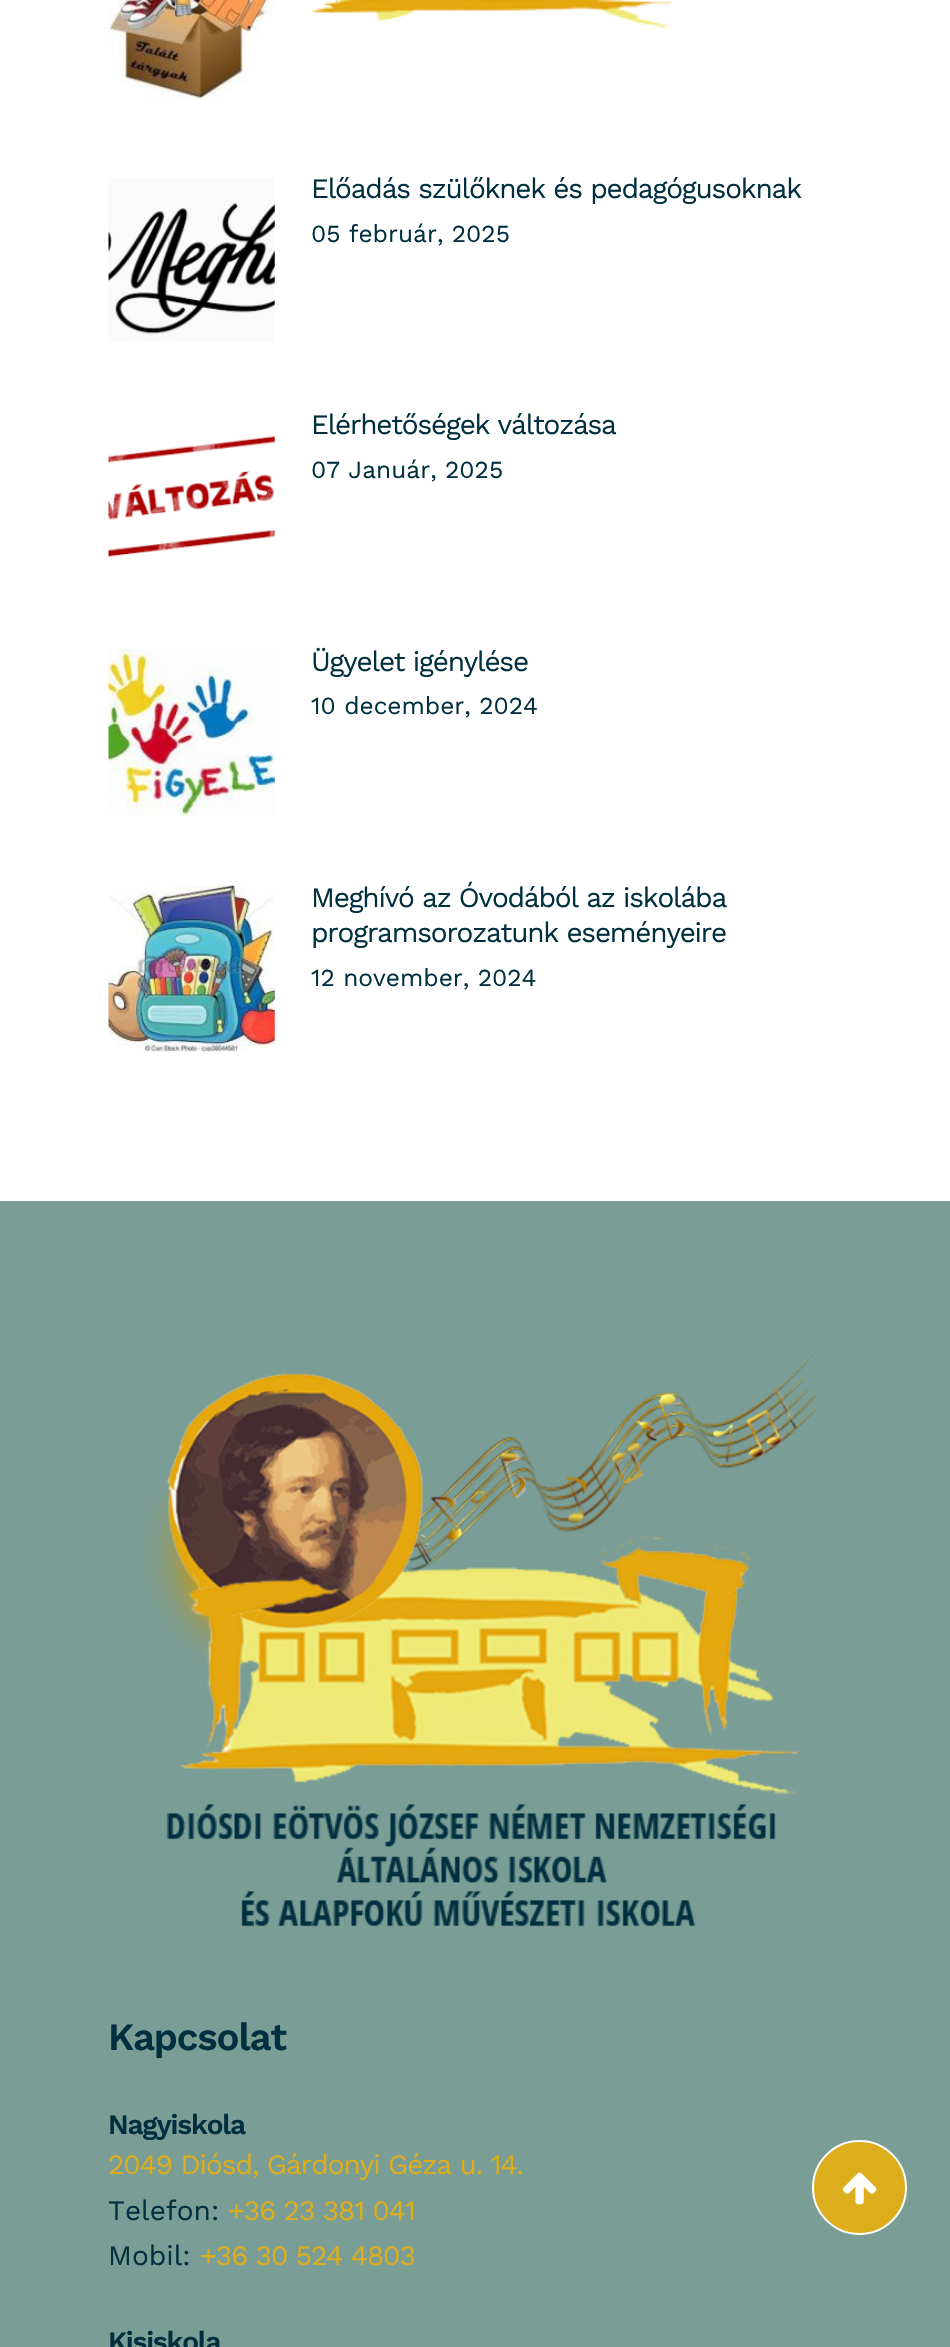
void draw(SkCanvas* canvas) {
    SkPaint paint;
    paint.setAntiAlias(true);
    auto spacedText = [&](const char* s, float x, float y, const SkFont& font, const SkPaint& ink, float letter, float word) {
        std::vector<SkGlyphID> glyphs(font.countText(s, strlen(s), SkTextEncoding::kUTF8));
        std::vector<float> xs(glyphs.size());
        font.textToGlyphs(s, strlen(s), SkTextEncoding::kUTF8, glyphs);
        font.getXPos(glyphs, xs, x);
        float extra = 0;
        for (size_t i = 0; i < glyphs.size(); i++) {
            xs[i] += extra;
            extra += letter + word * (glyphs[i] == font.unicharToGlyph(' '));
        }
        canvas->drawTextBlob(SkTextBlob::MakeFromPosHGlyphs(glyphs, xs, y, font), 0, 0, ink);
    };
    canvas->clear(0xFFFFFFFF);
    canvas->drawImageRect(SkImages::DeferredFromEncodedData(SkData::MakeFromFileName("img1.png")), SkRect::MakeXYWH(311, 0, 362, 29), SkSamplingOptions());
    canvas->drawImageRect(SkImages::DeferredFromEncodedData(SkData::MakeFromFileName("img2.png")), SkRect::MakeXYWH(108, 0, 167, 100), SkSamplingOptions());
    canvas->drawImageRect(SkImages::DeferredFromEncodedData(SkData::MakeFromFileName("img3.png")), SkRect::MakeXYWH(108, 177, 167, 166), SkSamplingOptions());
    SkFont font1(fontMgr->matchFamilyStyle("Work Sans", SkFontStyle::Normal()), 28);
    font1.setSubpixel(true);
    paint.setColor(0xFF00303F);
    spacedText("Előadás szülőknek és pedagógusoknak", 311, 198, font1, paint, -1.2f, 0);
    SkFont font2(fontMgr->matchFamilyStyle("Work Sans", SkFontStyle::Normal()), 24.5f);
    font2.setSubpixel(true);
    canvas->drawString("05 február, 2025", 311, 242, font2, paint);
    canvas->drawImageRect(SkImages::DeferredFromEncodedData(SkData::MakeFromFileName("img4.png")), SkRect::MakeXYWH(108, 436, 167, 122), SkSamplingOptions());
    spacedText("Elérhetőségek változása", 311, 434, font1, paint, -1.2f, 0);
    canvas->drawString("07 Január, 2025", 311, 478, font2, paint);
    canvas->drawImageRect(SkImages::DeferredFromEncodedData(SkData::MakeFromFileName("img5.png")), SkRect::MakeXYWH(108, 649, 167, 167), SkSamplingOptions());
    spacedText("Ügyelet igénylése", 311, 671, font1, paint, -1.2f, 0);
    canvas->drawString("10 december, 2024", 311, 714, font2, paint);
    canvas->drawImageRect(SkImages::DeferredFromEncodedData(SkData::MakeFromFileName("img6.png")), SkRect::MakeXYWH(108, 885, 167, 167), SkSamplingOptions());
    spacedText("Meghívó az Óvodából az iskolába", 311, 907, font1, paint, -1.2f, 0);
    spacedText("programsorozatunk eseményeire", 311, 942, font1, paint, -1.2f, 0);
    canvas->drawString("12 november, 2024", 311, 986, font2, paint);
    paint.setColor(0xFF7A9D96);
    canvas->drawRect(SkRect::MakeXYWH(0, 1201, 950, 1146), paint);
    canvas->drawImageRect(SkImages::DeferredFromEncodedData(SkData::MakeFromFileName("img7.png")), SkRect::MakeXYWH(144, 1354, 672, 573), SkSamplingOptions());
    SkFont font3(fontMgr->matchFamilyStyle("Work Sans", SkFontStyle(600, SkFontStyle::kNormal_Width, SkFontStyle::kUpright_Slant)), 38.5f);
    font3.setSubpixel(true);
    paint.setColor(0xFF00303F);
    spacedText("Kapcsolat", 108, 2050, font3, paint, -1.2f, 0);
    SkFont font4(fontMgr->matchFamilyStyle("Work Sans", SkFontStyle(600, SkFontStyle::kNormal_Width, SkFontStyle::kUpright_Slant)), 28);
    font4.setSubpixel(true);
    spacedText("Nagyiskola", 108, 2134, font4, paint, -1.2f, 0);
    paint.setColor(0xFFDCAE1D);
    spacedText("2049 Diósd, Gárdonyi Géza u. 14.", 108, 2174, font1, paint, -1.05f, 0);
    paint.setColor(0xFF00303F);
    canvas->drawString("Telefon:", 108, 2220, font1, paint);
    paint.setColor(0xFFDCAE1D);
    spacedText("+36 23 381 041", 228, 2220, font1, paint, -1.05f, 0);
    paint.setColor(0xFF00303F);
    canvas->drawString("Mobil:", 108, 2265, font1, paint);
    paint.setColor(0xFFDCAE1D);
    spacedText("+36 30 524 4803", 200, 2265, font1, paint, -1.05f, 0);
    paint.setColor(0xFF00303F);
    spacedText("Kisiskola", 108, 2351, font4, paint, -1.2f, 0);
    paint.setColor(0xFFDCAE1D);
    canvas->drawCircle(859.5f, 2187.5f, 46.5f, paint);
    paint.setStyle(SkPaint::kStroke_Style);
    paint.setStrokeWidth(2);
    paint.setColor(0xFFFFFFFF);
    canvas->drawCircle(859.5f, 2187.5f, 46.5f, paint);
    canvas->drawImageRect(SkImages::DeferredFromEncodedData(SkData::MakeFromFileName("img8.png")), SkRect::MakeXYWH(842, 2172, 35, 33), SkSamplingOptions());
}
